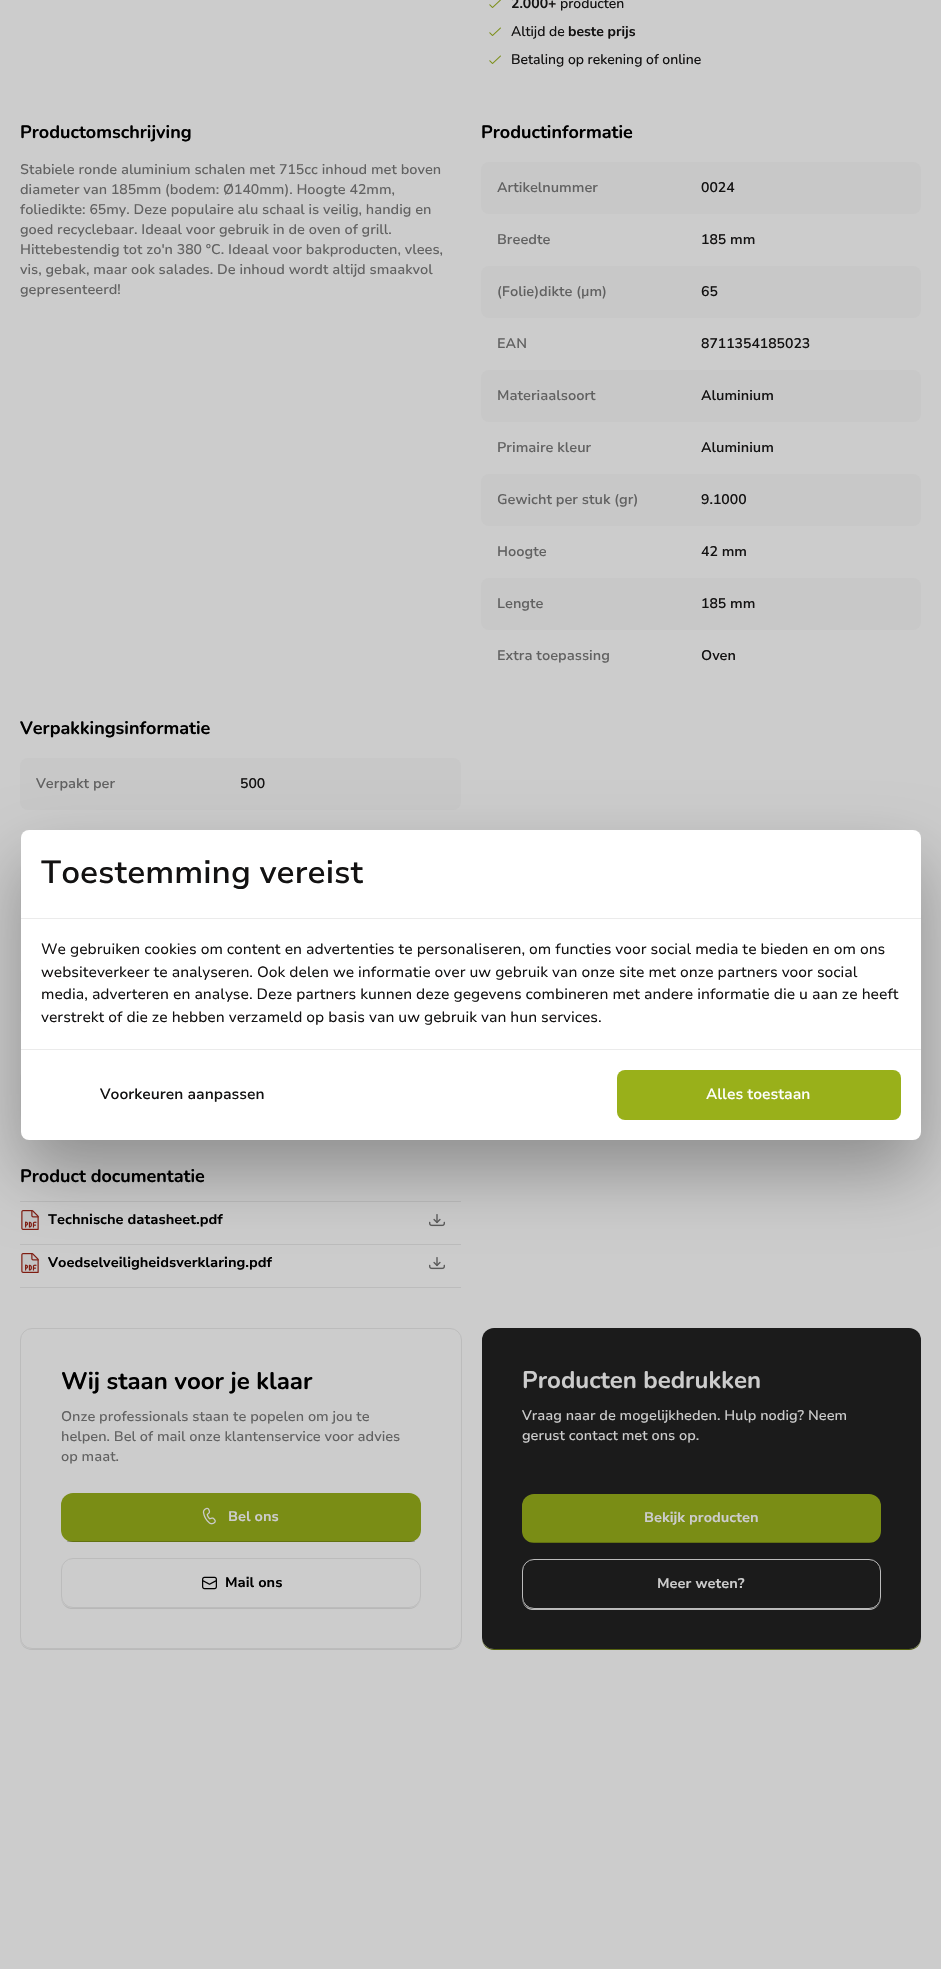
void draw(SkCanvas* canvas) {
    SkPaint paint;
    paint.setAntiAlias(true);
    canvas->clear(0xFFCCCCCC);
    canvas->drawImageRect(SkImages::DeferredFromEncodedData(SkData::MakeFromFileName("img1.png")), SkRect::MakeXYWH(489, 0, 12, 8), SkSamplingOptions());
    SkFont font1(fontMgr->matchFamilyStyle("Nunito", SkFontStyle::Bold()), 14);
    font1.setSubpixel(true);
    paint.setColor(0xFF131212);
    canvas->drawString("2.000+", 511, 8, font1, paint);
    SkFont font2(fontMgr->matchFamilyStyle("Nunito", SkFontStyle(500, SkFontStyle::kNormal_Width, SkFontStyle::kUpright_Slant)), 14);
    font2.setSubpixel(true);
    canvas->drawString("producten", 560, 8, font2, paint);
    canvas->drawImageRect(SkImages::DeferredFromEncodedData(SkData::MakeFromFileName("img2.png")), SkRect::MakeXYWH(489, 27, 12, 9), SkSamplingOptions());
    canvas->drawString("Altijd de", 511, 36, font2, paint);
    canvas->drawString("beste prijs", 568, 36, font1, paint);
    canvas->drawImageRect(SkImages::DeferredFromEncodedData(SkData::MakeFromFileName("img2.png")), SkRect::MakeXYWH(489, 55, 12, 9), SkSamplingOptions());
    canvas->drawString("Betaling op rekening of online", 511, 64, font2, paint);
    SkFont font3(fontMgr->matchFamilyStyle("Nunito", SkFontStyle::Bold()), 18);
    font3.setSubpixel(true);
    paint.setColor(0xFF000000);
    canvas->drawString("Productomschrijving", 20, 138, font3, paint);
    SkFont font4(fontMgr->matchFamilyStyle("Nunito Sans", SkFontStyle(500, SkFontStyle::kNormal_Width, SkFontStyle::kUpright_Slant)), 14);
    font4.setSubpixel(true);
    paint.setColor(0xFF616161);
    canvas->drawString("Stabiele ronde aluminium schalen met 715cc inhoud met boven", 20, 174, font4, paint);
    canvas->drawString("diameter van 185mm (bodem: Ø140mm). Hoogte 42mm,", 20, 194, font4, paint);
    canvas->drawString("foliedikte: 65my. Deze populaire alu schaal is veilig, handig en", 20, 214, font4, paint);
    canvas->drawString("goed recyclebaar. Ideaal voor gebruik in de oven of grill.", 20, 234, font4, paint);
    canvas->drawString("Hittebestendig tot zo'n 380 °C. Ideaal voor bakproducten, vlees,", 20, 254, font4, paint);
    canvas->drawString("vis, gebak, maar ook salades. De inhoud wordt altijd smaakvol", 20, 274, font4, paint);
    canvas->drawString("gepresenteerd!", 20, 294, font4, paint);
    paint.setColor(0xFF000000);
    canvas->drawString("Productinformatie", 481, 138, font3, paint);
    paint.setColor(0xFFC8C8C8);
    canvas->drawRoundRect(SkRect::MakeXYWH(481, 162, 440, 52), 8, 8, paint);
    SkFont font5(fontMgr->matchFamilyStyle("Nunito Sans", SkFontStyle(600, SkFontStyle::kNormal_Width, SkFontStyle::kUpright_Slant)), 14);
    font5.setSubpixel(true);
    paint.setColor(0xFF616161);
    canvas->drawString("Artikelnummer", 497, 192, font5, paint);
    paint.setColor(0xFF131212);
    canvas->drawString("0024", 701, 192, font5, paint);
    paint.setColor(0xFF616161);
    canvas->drawString("Breedte", 497, 244, font5, paint);
    paint.setColor(0xFF131212);
    canvas->drawString("185 mm", 701, 244, font5, paint);
    paint.setColor(0xFFC8C8C8);
    canvas->drawRoundRect(SkRect::MakeXYWH(481, 266, 440, 52), 8, 8, paint);
    paint.setColor(0xFF616161);
    canvas->drawString("(Folie)dikte (µm)", 497, 296, font5, paint);
    paint.setColor(0xFF131212);
    canvas->drawString("65", 701, 296, font5, paint);
    paint.setColor(0xFF616161);
    canvas->drawString("EAN", 497, 348, font5, paint);
    paint.setColor(0xFF131212);
    canvas->drawString("8711354185023", 701, 348, font5, paint);
    paint.setColor(0xFFC8C8C8);
    canvas->drawRoundRect(SkRect::MakeXYWH(481, 370, 440, 52), 8, 8, paint);
    paint.setColor(0xFF616161);
    canvas->drawString("Materiaalsoort", 497, 400, font5, paint);
    paint.setColor(0xFF131212);
    canvas->drawString("Aluminium", 701, 400, font5, paint);
    paint.setColor(0xFF616161);
    canvas->drawString("Primaire kleur", 497, 452, font5, paint);
    paint.setColor(0xFF131212);
    canvas->drawString("Aluminium", 701, 452, font5, paint);
    paint.setColor(0xFFC8C8C8);
    canvas->drawRoundRect(SkRect::MakeXYWH(481, 474, 440, 52), 8, 8, paint);
    paint.setColor(0xFF616161);
    canvas->drawString("Gewicht per stuk (gr)", 497, 504, font5, paint);
    paint.setColor(0xFF131212);
    canvas->drawString("9.1000", 701, 504, font5, paint);
    paint.setColor(0xFF616161);
    canvas->drawString("Hoogte", 497, 556, font5, paint);
    paint.setColor(0xFF131212);
    canvas->drawString("42 mm", 701, 556, font5, paint);
    paint.setColor(0xFFC8C8C8);
    canvas->drawRoundRect(SkRect::MakeXYWH(481, 578, 440, 52), 8, 8, paint);
    paint.setColor(0xFF616161);
    canvas->drawString("Lengte", 497, 608, font5, paint);
    paint.setColor(0xFF131212);
    canvas->drawString("185 mm", 701, 608, font5, paint);
    paint.setColor(0xFF616161);
    canvas->drawString("Extra toepassing", 497, 660, font5, paint);
    paint.setColor(0xFF131212);
    canvas->drawString("Oven", 701, 660, font5, paint);
    paint.setColor(0xFF000000);
    canvas->drawString("Verpakkingsinformatie", 20, 734, font3, paint);
    paint.setColor(0xFFC8C8C8);
    canvas->drawRoundRect(SkRect::MakeXYWH(20, 758, 441, 52), 8, 8, paint);
    paint.setColor(0xFF616161);
    canvas->drawString("Verpakt per", 36, 788, font5, paint);
    paint.setColor(0xFF131212);
    canvas->drawString("500", 240, 788, font5, paint);
    paint.setColor(0xFFC8C8C8);
    canvas->drawRoundRect(SkRect::MakeXYWH(20, 862, 441, 52), 8, 8, paint);
    canvas->drawRoundRect(SkRect::MakeXYWH(20, 966, 441, 52), 8, 8, paint);
    canvas->drawRoundRect(SkRect::MakeXYWH(20, 1070, 441, 52), 8, 8, paint);
    paint.setColor(0xFF000000);
    canvas->drawString("Product documentatie", 20, 1182, font3, paint);
    paint.setColor(0xFFBCBCBC);
    canvas->drawRect(SkRect::MakeXYWH(20, 1201, 441, 1), paint);
    canvas->drawRect(SkRect::MakeXYWH(20, 1244, 441, 1), paint);
    canvas->drawImageRect(SkImages::DeferredFromEncodedData(SkData::MakeFromFileName("img3.png")), SkRect::MakeXYWH(21, 1210, 18, 20), SkSamplingOptions());
    SkFont font6(fontMgr->matchFamilyStyle("Nunito Sans", SkFontStyle::Bold()), 14);
    font6.setSubpixel(true);
    paint.setColor(0xFF000000);
    canvas->drawString("Technische datasheet.pdf", 48, 1224, font6, paint);
    canvas->drawImageRect(SkImages::DeferredFromEncodedData(SkData::MakeFromFileName("img4.png")), SkRect::MakeXYWH(429, 1214, 16, 13), SkSamplingOptions());
    paint.setColor(0xFFBCBCBC);
    canvas->drawRect(SkRect::MakeXYWH(20, 1287, 441, 1), paint);
    canvas->drawImageRect(SkImages::DeferredFromEncodedData(SkData::MakeFromFileName("img3.png")), SkRect::MakeXYWH(21, 1253, 18, 20), SkSamplingOptions());
    paint.setColor(0xFF000000);
    canvas->drawString("Voedselveiligheidsverklaring.pdf", 48, 1267, font6, paint);
    canvas->drawImageRect(SkImages::DeferredFromEncodedData(SkData::MakeFromFileName("img4.png")), SkRect::MakeXYWH(429, 1257, 16, 13), SkSamplingOptions());
    paint.setColor(0xFFBABABA);
    canvas->drawPath(SkPathBuilder().moveTo(20, 1637).lineTo(20, 1638).cubicTo(20, 1645, 25, 1650, 32, 1650).lineTo(450, 1650).cubicTo(457, 1650, 462, 1645, 462, 1638).lineTo(462, 1637).cubicTo(462, 1644, 457, 1649, 450, 1649).lineTo(32, 1649).cubicTo(25, 1649, 20, 1644, 20, 1637).close().detach(), paint);
    paint.setStyle(SkPaint::kStroke_Style);
    paint.setStrokeWidth(1);
    paint.setColor(0xFFBCBCBC);
    canvas->drawRoundRect(SkRect::MakeXYWH(20.5f, 1328.5f, 441, 320), 11.5f, 11.5f, paint);
    SkFont font7(fontMgr->matchFamilyStyle("Nunito", SkFontStyle::Bold()), 24);
    font7.setSubpixel(true);
    paint.setStyle(SkPaint::kFill_Style);
    paint.setColor(0xFF000000);
    canvas->drawString("Wij staan voor je klaar", 61, 1389, font7, paint);
    paint.setColor(0xFF616161);
    canvas->drawString("Onze professionals staan te popelen om jou te", 61, 1421, font4, paint);
    canvas->drawString("helpen. Bel of mail onze klantenservice voor advies", 61, 1441, font4, paint);
    canvas->drawString("op maat.", 61, 1461, font4, paint);
    paint.setColor(0xFF7A8D15);
    canvas->drawRoundRect(SkRect::MakeXYWH(61, 1493, 360, 49), 12, 12, paint);
    paint.setColor(0x33000000);
    canvas->drawRect(SkRect::MakeXYWH(67, 1541, 348, 1), paint);
    canvas->drawImageRect(SkImages::DeferredFromEncodedData(SkData::MakeFromFileName("img5.png")), SkRect::MakeXYWH(202, 1507, 14, 18), SkSamplingOptions());
    paint.setColor(0xFFCCCCCC);
    canvas->drawString("Bel ons", 228, 1521, font6, paint);
    paint.setColor(0xFFB8B8B8);
    canvas->drawPath(SkPathBuilder().moveTo(61, 1596).cubicTo(61, 1602, 64, 1608, 71, 1609).lineTo(409, 1609).cubicTo(416, 1609, 421, 1603, 421, 1596).cubicTo(421, 1603, 416, 1608, 409, 1608).lineTo(73, 1608).cubicTo(66, 1608, 61, 1603, 61, 1596).close().detach(), paint);
    paint.setStyle(SkPaint::kStroke_Style);
    paint.setColor(0xFFBCBCBC);
    canvas->drawRoundRect(SkRect::MakeXYWH(61.5f, 1558.5f, 359, 49), 11.5f, 11.5f, paint);
    canvas->drawImageRect(SkImages::DeferredFromEncodedData(SkData::MakeFromFileName("img6.png")), SkRect::MakeXYWH(202, 1576, 15, 14), SkSamplingOptions());
    paint.setStyle(SkPaint::kFill_Style);
    paint.setColor(0xFF000000);
    canvas->drawString("Mail ons", 225, 1587, font6, paint);
    paint.setColor(0xFF556210);
    canvas->drawPath(SkPathBuilder().moveTo(482, 1637).lineTo(482, 1638).cubicTo(482, 1645, 487, 1650, 494, 1650).lineTo(909, 1650).cubicTo(916, 1650, 921, 1645, 921, 1638).lineTo(921, 1637).cubicTo(921, 1644, 916, 1649, 909, 1649).lineTo(494, 1649).cubicTo(487, 1649, 482, 1644, 482, 1637).close().detach(), paint);
    paint.setColor(0xFF1B1B1B);
    canvas->drawRoundRect(SkRect::MakeXYWH(482, 1328, 439, 321), 12, 12, paint);
    paint.setColor(0xFFCCCCCC);
    canvas->drawString("Producten bedrukken", 522, 1388, font7, paint);
    canvas->drawString("Vraag naar de mogelijkheden. Hulp nodig? Neem", 522, 1420, font4, paint);
    canvas->drawString("gerust contact met ons op.", 522, 1440, font4, paint);
    paint.setColor(0xFF7A8D15);
    canvas->drawRoundRect(SkRect::MakeXYWH(522, 1494, 359, 49), 12, 12, paint);
    paint.setColor(0x33000000);
    canvas->drawRect(SkRect::MakeXYWH(528, 1542, 347, 1), paint);
    paint.setColor(0xFFCCCCCC);
    canvas->drawString("Bekijk producten", 644, 1522, font6, paint);
    paint.setColor(0xFFB8B8B8);
    canvas->drawPath(SkPathBuilder().moveTo(522, 1597).cubicTo(522, 1603, 525, 1609, 532, 1610).lineTo(869, 1610).cubicTo(876, 1610, 881, 1604, 881, 1597).cubicTo(881, 1604, 876, 1609, 869, 1609).lineTo(534, 1609).cubicTo(527, 1609, 522, 1604, 522, 1597).close().detach(), paint);
    paint.setStyle(SkPaint::kStroke_Style);
    paint.setColor(0xFFBCBCBC);
    canvas->drawRoundRect(SkRect::MakeXYWH(522.5f, 1559.5f, 358, 49), 11.5f, 11.5f, paint);
    paint.setStyle(SkPaint::kFill_Style);
    paint.setColor(0xFFCCCCCC);
    canvas->drawString("Meer weten?", 657, 1588, font6, paint);
    paint.setColor(0x4D000000);
    paint.setMaskFilter(SkMaskFilter::MakeBlur(kNormal_SkBlurStyle, 34));
    canvas->drawRoundRect(SkRect::MakeXYWH(21, 862, 900, 310), 8, 8, paint);
    paint.setMaskFilter(nullptr);
    paint.setColor(0xFFFFFFFF);
    canvas->drawRoundRect(SkRect::MakeXYWH(21, 830, 900, 310), 8, 8, paint);
    paint.setColor(0xFFEBEBEB);
    canvas->drawRect(SkRect::MakeXYWH(21, 918, 900, 1), paint);
    SkFont font8(fontMgr->matchFamilyStyle("Nunito Sans", SkFontStyle(600, SkFontStyle::kNormal_Width, SkFontStyle::kUpright_Slant)), 32);
    font8.setSubpixel(true);
    paint.setColor(0xFF131212);
    canvas->drawString("Toestemming vereist", 41, 883, font8, paint);
    SkFont font9(fontMgr->matchFamilyStyle("Nunito Sans", SkFontStyle::Normal()), 15);
    font9.setSubpixel(true);
    canvas->drawString("We gebruiken cookies om content en advertenties te personaliseren, om functies voor social media te bieden en om ons", 41, 954, font9, paint);
    canvas->drawString("websiteverkeer te analyseren. Ook delen we informatie over uw gebruik van onze site met onze partners voor social", 41, 977, font9, paint);
    canvas->drawString("media, adverteren en analyse. Deze partners kunnen deze gegevens combineren met andere informatie die u aan ze heeft", 41, 999, font9, paint);
    canvas->drawString("verstrekt of die ze hebben verzameld op basis van uw gebruik van hun services.", 41, 1022, font9, paint);
    paint.setColor(0xFFEBEBEB);
    canvas->drawRect(SkRect::MakeXYWH(21, 1049, 900, 1), paint);
    SkFont font10(fontMgr->matchFamilyStyle("Nunito Sans", SkFontStyle(600, SkFontStyle::kNormal_Width, SkFontStyle::kUpright_Slant)), 15);
    font10.setSubpixel(true);
    paint.setColor(0xFF131212);
    canvas->drawString("Voorkeuren aanpassen", 100, 1099, font10, paint);
    paint.setColor(0xFF99B01A);
    canvas->drawRoundRect(SkRect::MakeXYWH(617, 1070, 284, 50), 8, 8, paint);
    paint.setColor(0xFFFFFFFF);
    canvas->drawString("Alles toestaan", 706, 1099, font10, paint);
}
